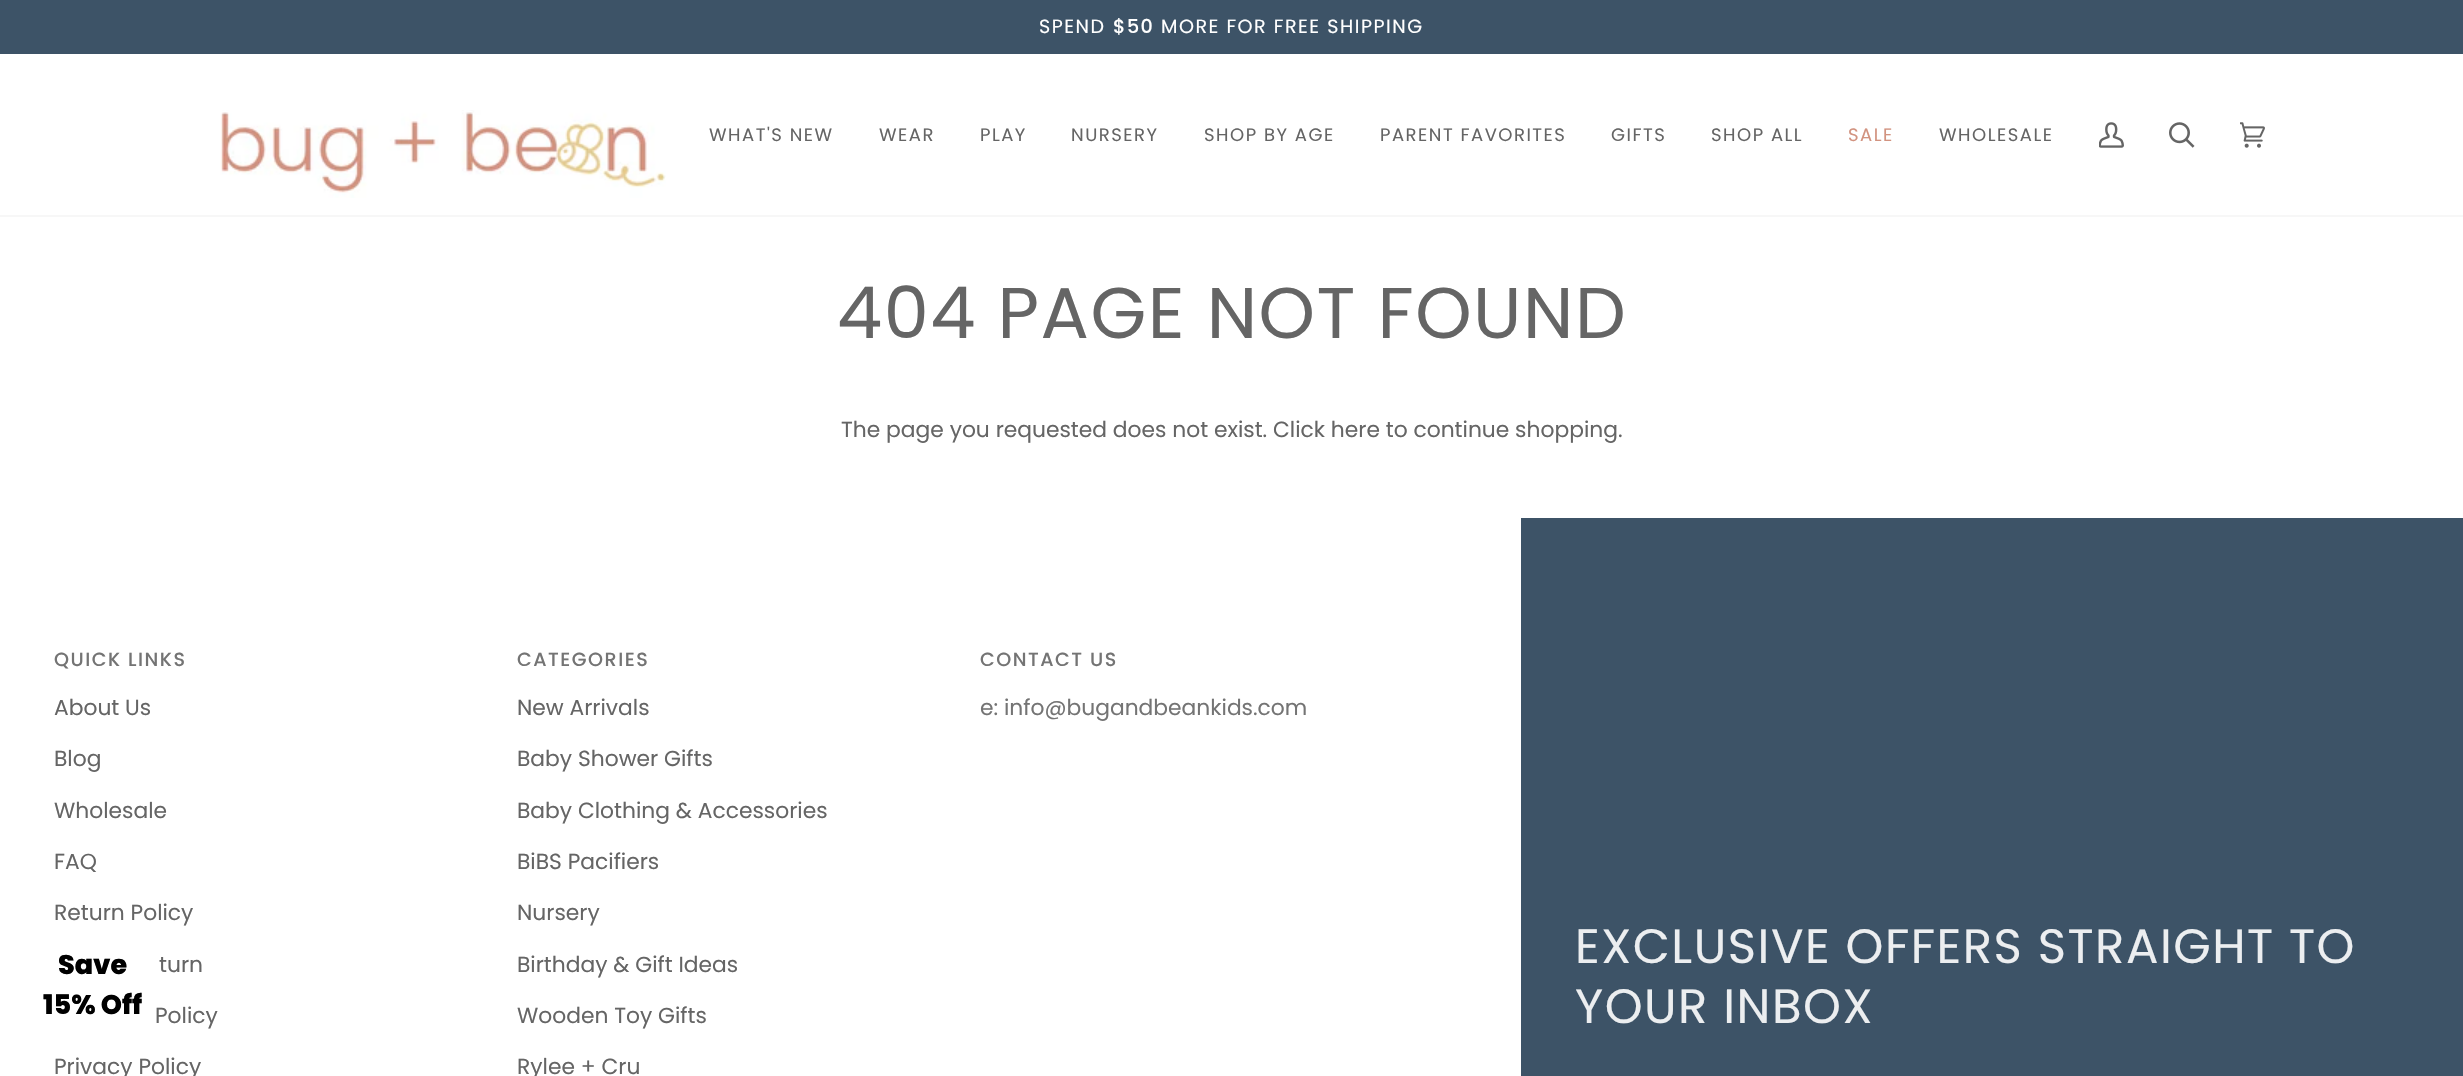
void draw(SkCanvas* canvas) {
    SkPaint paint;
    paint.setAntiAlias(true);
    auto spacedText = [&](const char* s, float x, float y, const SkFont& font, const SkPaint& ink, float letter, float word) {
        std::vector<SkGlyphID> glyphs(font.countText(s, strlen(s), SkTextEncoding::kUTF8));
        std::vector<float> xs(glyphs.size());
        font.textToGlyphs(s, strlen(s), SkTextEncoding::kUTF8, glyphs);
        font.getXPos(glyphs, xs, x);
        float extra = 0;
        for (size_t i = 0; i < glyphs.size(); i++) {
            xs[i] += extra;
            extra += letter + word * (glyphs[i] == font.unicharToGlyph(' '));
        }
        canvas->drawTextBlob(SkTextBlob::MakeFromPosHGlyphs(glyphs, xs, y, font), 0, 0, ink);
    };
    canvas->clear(0xFFFFFFFF);
    paint.setColor(0xFF3D5367);
    canvas->drawRect(SkRect::MakeXYWH(0, 0, 2463, 54), paint);
    SkFont font1(fontMgr->matchFamilyStyle("Poppins", SkFontStyle::Normal()), 19.1f);
    font1.setSubpixel(true);
    paint.setColor(0xFFFFFFFF);
    spacedText("SPEND", 1039, 33, font1, paint, 1.5f, 0);
    SkFont font2(fontMgr->matchFamilyStyle("Poppins", SkFontStyle(500, SkFontStyle::kNormal_Width, SkFontStyle::kUpright_Slant)), 19.1f);
    font2.setSubpixel(true);
    spacedText("$50", 1113, 33, font2, paint, 1.5f, 0);
    spacedText("MORE FOR FREE SHIPPING", 1161, 33, font1, paint, 1.5f, 0);
    paint.setColor(0xFFF7F7F7);
    canvas->drawRect(SkRect::MakeXYWH(0, 215, 2463, 2), paint);
    canvas->drawImageRect(SkImages::DeferredFromEncodedData(SkData::MakeFromFileName("img1.png")), SkRect::MakeXYWH(220, 110, 446, 88), SkSamplingOptions());
    SkFont font3(fontMgr->matchFamilyStyle("Poppins", SkFontStyle::Normal()), 18);
    font3.setSubpixel(true);
    paint.setColor(0xFF656565);
    spacedText("WHAT'S NEW", 709, 141, font3, paint, 1.5f, 0);
    spacedText("WEAR", 879, 141, font3, paint, 1.5f, 0);
    spacedText("PLAY", 980, 141, font3, paint, 1.5f, 0);
    spacedText("NURSERY", 1071, 141, font3, paint, 1.5f, 0);
    spacedText("SHOP BY AGE", 1204, 141, font3, paint, 1.5f, 0);
    spacedText("PARENT FAVORITES", 1380, 141, font3, paint, 1.5f, 0);
    spacedText("GIFTS", 1611, 141, font3, paint, 1.5f, 0);
    spacedText("SHOP ALL", 1711, 141, font3, paint, 1.5f, 0);
    paint.setColor(0xFFD29380);
    spacedText("SALE", 1848, 141, font3, paint, 1.5f, 0);
    paint.setColor(0xFF656565);
    spacedText("WHOLESALE", 1939, 141, font3, paint, 1.5f, 0);
    canvas->drawImageRect(SkImages::DeferredFromEncodedData(SkData::MakeFromFileName("img2.png")), SkRect::MakeXYWH(2099, 122, 25, 26), SkSamplingOptions());
    canvas->drawImageRect(SkImages::DeferredFromEncodedData(SkData::MakeFromFileName("img3.png")), SkRect::MakeXYWH(2169, 122, 26, 26), SkSamplingOptions());
    canvas->drawImageRect(SkImages::DeferredFromEncodedData(SkData::MakeFromFileName("img4.png")), SkRect::MakeXYWH(2240, 122, 25, 26), SkSamplingOptions());
    SkFont font4(fontMgr->matchFamilyStyle("Poppins", SkFontStyle::Normal()), 71.75f);
    font4.setSubpixel(true);
    spacedText("404 PAGE NOT FOUND", 837, 338, font4, paint, 1.5f, 0);
    SkFont font5(fontMgr->matchFamilyStyle("Poppins", SkFontStyle::Normal()), 21.8f);
    font5.setSubpixel(true);
    canvas->drawString("The page you requested does not exist. Click here to continue shopping.", 841, 437, font5, paint);
    paint.setColor(0xFF747474);
    spacedText("QUICK LINKS", 54, 666, font2, paint, 1.5f, 0);
    paint.setColor(0xFF656565);
    canvas->drawString("About Us", 54, 715, font5, paint);
    canvas->drawString("Blog", 54, 766, font5, paint);
    canvas->drawString("Wholesale", 54, 818, font5, paint);
    canvas->drawString("FAQ", 54, 869, font5, paint);
    canvas->drawString("Return Policy", 54, 920, font5, paint);
    canvas->drawString("turn", 159, 972, font5, paint);
    canvas->drawString("Policy", 155, 1023, font5, paint);
    canvas->drawString("Privacy Policy", 54, 1074, font5, paint);
    paint.setColor(0xFF747474);
    spacedText("CATEGORIES", 517, 666, font2, paint, 1.5f, 0);
    paint.setColor(0xFF656565);
    canvas->drawString("New Arrivals", 517, 715, font5, paint);
    canvas->drawString("Baby Shower Gifts", 517, 766, font5, paint);
    canvas->drawString("Baby Clothing & Accessories", 517, 818, font5, paint);
    canvas->drawString("BiBS Pacifiers", 517, 869, font5, paint);
    canvas->drawString("Nursery", 517, 920, font5, paint);
    canvas->drawString("Birthday & Gift Ideas", 517, 972, font5, paint);
    canvas->drawString("Wooden Toy Gifts", 517, 1023, font5, paint);
    canvas->drawString("Rylee + Cru", 517, 1074, font5, paint);
    paint.setColor(0xFF747474);
    spacedText("CONTACT US", 980, 666, font2, paint, 1.5f, 0);
    canvas->drawString("e: info@bugandbeankids.com", 980, 715, font5, paint);
    paint.setColor(0xFF3D5367);
    canvas->drawRect(SkRect::MakeXYWH(1521, 518, 942, 558), paint);
    SkFont font6(fontMgr->matchFamilyStyle("Poppins", SkFontStyle::Normal()), 48.2f);
    font6.setSubpixel(true);
    paint.setColor(0xFFECEEF0);
    spacedText("EXCLUSIVE OFFERS STRAIGHT TO", 1575, 963, font6, paint, 1.5f, 0);
    spacedText("YOUR INBOX", 1575, 1023, font6, paint, 1.5f, 0);
    SkFont font7(fontMgr->matchFamilyStyle("Poppins", SkFontStyle(800, SkFontStyle::kNormal_Width, SkFontStyle::kUpright_Slant)), 27);
    font7.setSubpixel(true);
    paint.setColor(0xFF000000);
    canvas->drawString("Save", 58, 974, font7, paint);
    canvas->drawString("15% Off", 43, 1014, font7, paint);
}
